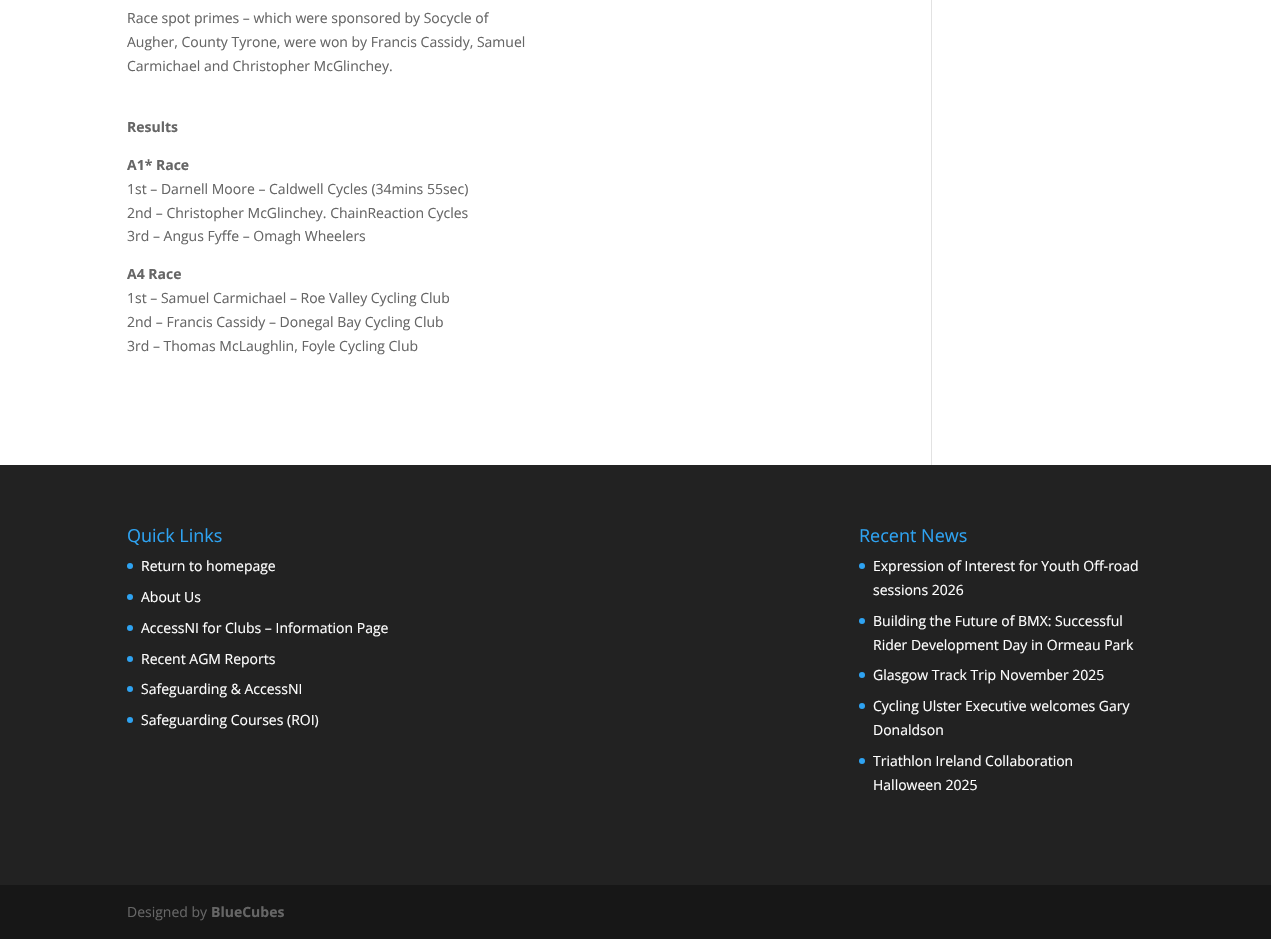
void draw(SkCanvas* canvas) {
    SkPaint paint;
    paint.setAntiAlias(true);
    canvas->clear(0xFFFFFFFF);
    SkFont font1(fontMgr->matchFamilyStyle("Open Sans", SkFontStyle::Normal()), 14);
    font1.setSubpixel(true);
    paint.setColor(0xFF666666);
    canvas->drawString("Race spot primes – which were sponsored by Socycle of", 127, 23, font1, paint);
    canvas->drawString("Augher, County Tyrone, were won by Francis Cassidy, Samuel", 127, 47, font1, paint);
    canvas->drawString("Carmichael and Christopher McGlinchey.", 127, 71, font1, paint);
    SkFont font2(fontMgr->matchFamilyStyle("Open Sans", SkFontStyle::Bold()), 14);
    font2.setSubpixel(true);
    canvas->drawString("Results", 127, 132, font2, paint);
    canvas->drawString("A1* Race", 127, 170, font2, paint);
    canvas->drawString("1st – Darnell Moore – Caldwell Cycles (34mins 55sec)", 127, 194, font1, paint);
    canvas->drawString("2nd – Christopher McGlinchey. ChainReaction Cycles", 127, 218, font1, paint);
    canvas->drawString("3rd – Angus Fyffe – Omagh Wheelers", 127, 241, font1, paint);
    canvas->drawString("A4 Race", 127, 279, font2, paint);
    canvas->drawString("1st – Samuel Carmichael – Roe Valley Cycling Club", 127, 303, font1, paint);
    canvas->drawString("2nd – Francis Cassidy – Donegal Bay Cycling Club", 127, 327, font1, paint);
    canvas->drawString("3rd – Thomas McLaughlin, Foyle Cycling Club", 127, 351, font1, paint);
    paint.setColor(0xFFE2E2E2);
    canvas->drawRect(SkRect::MakeXYWH(931, 0, 1, 465), paint);
    paint.setColor(0xFF222222);
    canvas->drawRect(SkRect::MakeXYWH(0, 465, 1271, 420), paint);
    SkFont font3(fontMgr->matchFamilyStyle("Open Sans", SkFontStyle::Normal()), 18);
    font3.setSubpixel(true);
    paint.setColor(0xFF2EA3F2);
    canvas->drawString("Quick Links", 127, 542, font3, paint);
    canvas->drawCircle(130, 566, 3, paint);
    paint.setColor(0xFFFFFFFF);
    canvas->drawString("Return to homepage", 141, 571, font1, paint);
    paint.setColor(0xFF2EA3F2);
    canvas->drawCircle(130, 597, 3, paint);
    paint.setColor(0xFFFFFFFF);
    canvas->drawString("About Us", 141, 602, font1, paint);
    paint.setColor(0xFF2EA3F2);
    canvas->drawCircle(130, 628, 3, paint);
    paint.setColor(0xFFFFFFFF);
    canvas->drawString("AccessNI for Clubs – Information Page", 141, 633, font1, paint);
    paint.setColor(0xFF2EA3F2);
    canvas->drawCircle(130, 659, 3, paint);
    paint.setColor(0xFFFFFFFF);
    canvas->drawString("Recent AGM Reports", 141, 664, font1, paint);
    paint.setColor(0xFF2EA3F2);
    canvas->drawCircle(130, 689, 3, paint);
    paint.setColor(0xFFFFFFFF);
    canvas->drawString("Safeguarding & AccessNI", 141, 694, font1, paint);
    paint.setColor(0xFF2EA3F2);
    canvas->drawCircle(130, 720, 3, paint);
    paint.setColor(0xFFFFFFFF);
    canvas->drawString("Safeguarding Courses (ROI)", 141, 725, font1, paint);
    paint.setColor(0xFF2EA3F2);
    canvas->drawString("Recent News", 859, 542, font3, paint);
    canvas->drawCircle(862, 566, 3, paint);
    paint.setColor(0xFFFFFFFF);
    canvas->drawString("Expression of Interest for Youth Off-road", 873, 571, font1, paint);
    canvas->drawString("sessions 2026", 873, 595, font1, paint);
    paint.setColor(0xFF2EA3F2);
    canvas->drawCircle(862, 621, 3, paint);
    paint.setColor(0xFFFFFFFF);
    canvas->drawString("Building the Future of BMX: Successful", 873, 626, font1, paint);
    canvas->drawString("Rider Development Day in Ormeau Park", 873, 650, font1, paint);
    paint.setColor(0xFF2EA3F2);
    canvas->drawCircle(862, 675, 3, paint);
    paint.setColor(0xFFFFFFFF);
    canvas->drawString("Glasgow Track Trip November 2025", 873, 680, font1, paint);
    paint.setColor(0xFF2EA3F2);
    canvas->drawCircle(862, 706, 3, paint);
    paint.setColor(0xFFFFFFFF);
    canvas->drawString("Cycling Ulster Executive welcomes Gary", 873, 711, font1, paint);
    canvas->drawString("Donaldson", 873, 735, font1, paint);
    paint.setColor(0xFF2EA3F2);
    canvas->drawCircle(862, 761, 3, paint);
    paint.setColor(0xFFFFFFFF);
    canvas->drawString("Triathlon Ireland Collaboration", 873, 766, font1, paint);
    canvas->drawString("Halloween 2025", 873, 790, font1, paint);
    paint.setColor(0xFF171717);
    canvas->drawRect(SkRect::MakeXYWH(0, 885, 1271, 54), paint);
    paint.setColor(0xFF666666);
    canvas->drawString("Designed by", 127, 917, font1, paint);
    canvas->drawString("BlueCubes", 211, 917, font2, paint);
}
